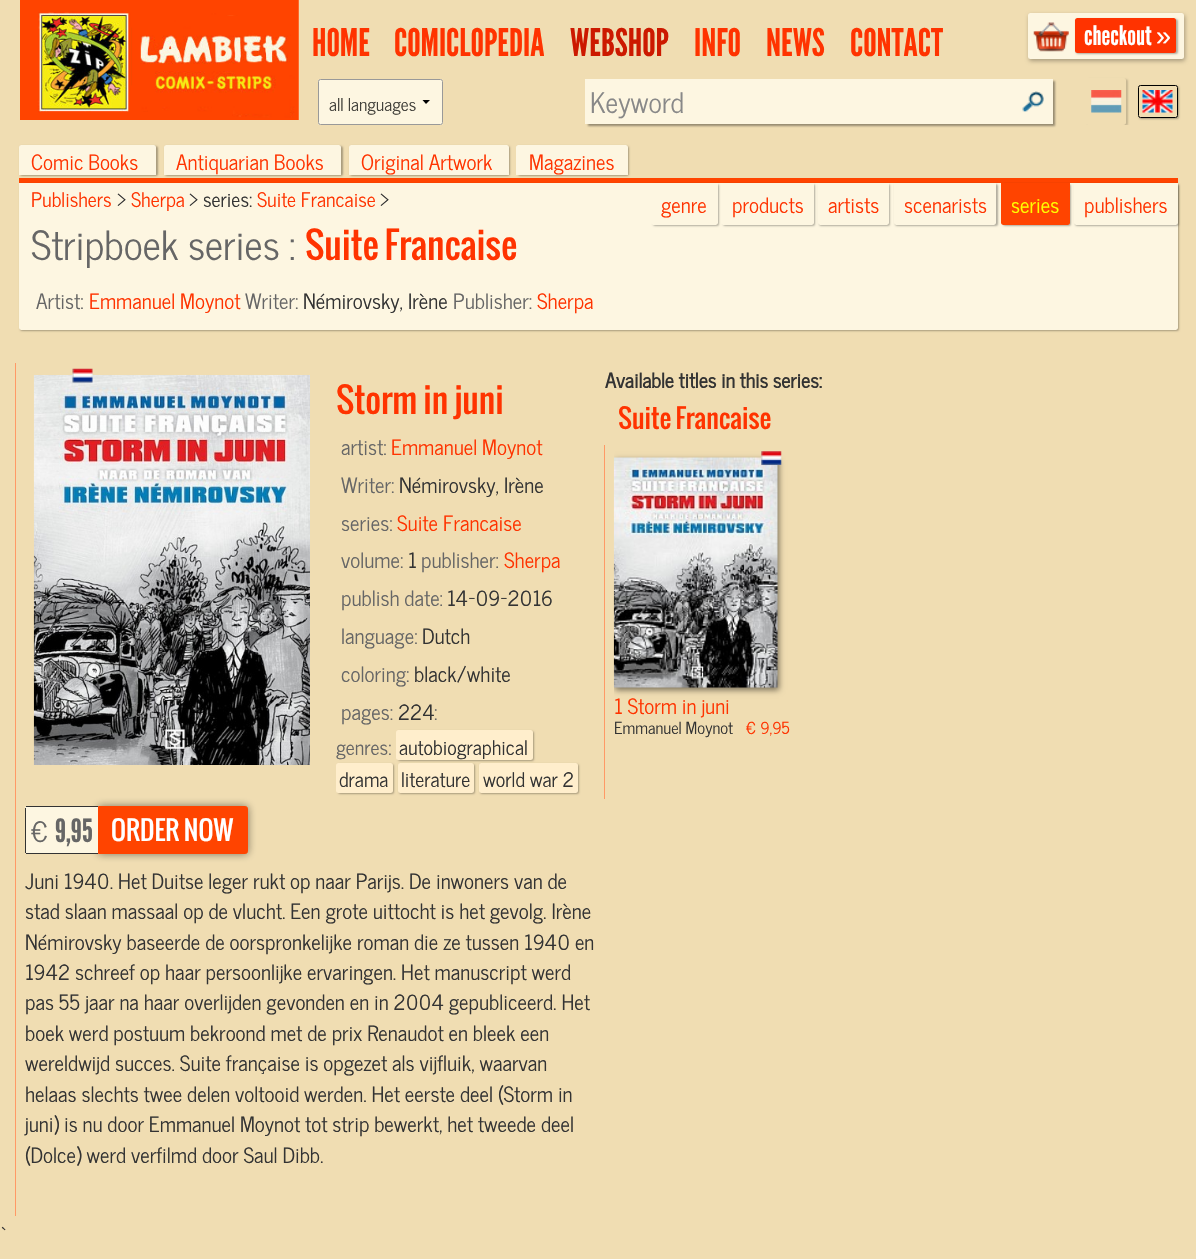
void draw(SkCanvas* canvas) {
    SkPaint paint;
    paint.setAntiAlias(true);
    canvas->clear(0xFFF0DDB2);
    canvas->drawImageRect(SkImages::DeferredFromEncodedData(SkData::MakeFromFileName("img1.png")), SkRect::MakeXYWH(20, 0, 279, 120), SkSamplingOptions());
    SkFont font1(fontMgr->matchFamilyStyle("League Gothic", SkFontStyle::Normal()), 38);
    font1.setSubpixel(true);
    paint.setColor(0xFFFF3300);
    canvas->drawString("HOME", 312, 56, font1, paint);
    canvas->drawString("COMICLOPEDIA", 394, 56, font1, paint);
    paint.setColor(0xFFCC1900);
    canvas->drawString("WEBSHOP", 570, 56, font1, paint);
    paint.setColor(0xFFFF3300);
    canvas->drawString("INFO", 694, 56, font1, paint);
    canvas->drawString("NEWS", 766, 56, font1, paint);
    canvas->drawString("CONTACT", 850, 56, font1, paint);
    paint.setColor(0xFFFDF6E1);
    canvas->drawRoundRect(SkRect::MakeXYWH(318, 79, 125, 46), 2.5f, 2.5f, paint);
    paint.setColor(0xFF000000);
    canvas->drawPath(SkPathBuilder().moveTo(430, 100).lineTo(426, 104).lineTo(422.5f, 100).close().detach(), paint);
    paint.setStyle(SkPaint::kStroke_Style);
    paint.setStrokeWidth(1);
    paint.setColor(0xFF999999);
    canvas->drawRoundRect(SkRect::MakeXYWH(318.5f, 79.5f, 124, 45), 2, 2, paint);
    SkFont font2(fontMgr->matchFamilyStyle("News Cycle", SkFontStyle(500, SkFontStyle::kNormal_Width, SkFontStyle::kUpright_Slant)), 17.5f);
    font2.setSubpixel(true);
    paint.setStyle(SkPaint::kFill_Style);
    paint.setColor(0xFF3F3E38);
    canvas->drawString("all languages", 329, 111, font2, paint);
    paint.setColor(0x660A0A0A);
    paint.setMaskFilter(SkMaskFilter::MakeBlur(kNormal_SkBlurStyle, 1));
    canvas->drawRect(SkRect::MakeXYWH(588, 81, 467, 45), paint);
    paint.setMaskFilter(nullptr);
    paint.setColor(0xFFFDF6E1);
    canvas->drawRect(SkRect::MakeXYWH(585, 79, 468, 45), paint);
    canvas->drawImageRect(SkImages::DeferredFromEncodedData(SkData::MakeFromFileName("img2.png")), SkRect::MakeXYWH(1022, 91, 22, 21), SkSamplingOptions());
    SkFont font3(fontMgr->matchFamilyStyle("News Cycle", SkFontStyle(500, SkFontStyle::kNormal_Width, SkFontStyle::kUpright_Slant)), 28);
    font3.setSubpixel(true);
    paint.setColor(0xFF888888);
    canvas->drawString("Keyword", 590, 113, font3, paint);
    paint.setColor(0x4D000000);
    paint.setMaskFilter(SkMaskFilter::MakeBlur(kNormal_SkBlurStyle, 2));
    canvas->drawRoundRect(SkRect::MakeXYWH(1029, 15, 156, 46), 2.5f, 2.5f, paint);
    paint.setMaskFilter(nullptr);
    paint.setColor(0xFFFDF6E1);
    canvas->drawRoundRect(SkRect::MakeXYWH(1028, 13, 156, 46), 2.5f, 2.5f, paint);
    canvas->drawImageRect(SkImages::DeferredFromEncodedData(SkData::MakeFromFileName("img3.png")), SkRect::MakeXYWH(1033, 22, 36, 30), SkSamplingOptions());
    paint.setColor(0x4D000000);
    paint.setMaskFilter(SkMaskFilter::MakeBlur(kNormal_SkBlurStyle, 1));
    canvas->drawRoundRect(SkRect::MakeXYWH(1076, 19, 102, 35), 2.5f, 2.5f, paint);
    paint.setMaskFilter(nullptr);
    paint.setColor(0xFFFF3300);
    canvas->drawRoundRect(SkRect::MakeXYWH(1075, 18, 101, 35), 2.5f, 2.5f, paint);
    SkFont font4(fontMgr->matchFamilyStyle("League Gothic", SkFontStyle::Normal()), 27);
    font4.setSubpixel(true);
    paint.setColor(0xFFFFFFFF);
    canvas->drawString("checkout", 1084, 45, font4, paint);
    SkFont font5(fontMgr->matchFamilyStyle("Liberation Sans", SkFontStyle::Normal()), 27);
    font5.setSubpixel(true);
    canvas->drawString("»", 1156, 45, font5, paint);
    canvas->save();
    canvas->clipRect(SkRect::MakeXYWH(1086, 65, 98, 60));
    canvas->clipPath(SkPathBuilder(SkPathFillType::kEvenOdd).moveTo(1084, 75).lineTo(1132, 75).lineTo(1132, 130).lineTo(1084, 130).close().moveTo(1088.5f, 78).lineTo(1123.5f, 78).cubicTo(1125, 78, 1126, 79, 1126, 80.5f).lineTo(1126, 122.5f).cubicTo(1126, 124, 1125, 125, 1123.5f, 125).lineTo(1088.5f, 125).cubicTo(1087, 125, 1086, 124, 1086, 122.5f).lineTo(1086, 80.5f).cubicTo(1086, 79, 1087, 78, 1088.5f, 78).close().detach(), true);
    paint.setColor(0x4D605847);
    paint.setMaskFilter(SkMaskFilter::MakeBlur(kNormal_SkBlurStyle, 1));
    canvas->drawRoundRect(SkRect::MakeXYWH(1088, 79, 40, 47), 2.5f, 2.5f, paint);
    paint.setMaskFilter(nullptr);
    canvas->restore();
    canvas->drawImageRect(SkImages::DeferredFromEncodedData(SkData::MakeFromFileName("img4.png")), SkRect::MakeXYWH(1091, 90, 31, 23), SkSamplingOptions());
    canvas->save();
    canvas->clipPath(SkPathBuilder(SkPathFillType::kEvenOdd).moveTo(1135, 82).lineTo(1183, 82).lineTo(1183, 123).lineTo(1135, 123).close().moveTo(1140.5f, 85).lineTo(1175.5f, 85).cubicTo(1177, 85, 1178, 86, 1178, 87.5f).lineTo(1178, 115.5f).cubicTo(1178, 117, 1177, 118, 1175.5f, 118).lineTo(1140.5f, 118).cubicTo(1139, 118, 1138, 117, 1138, 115.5f).lineTo(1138, 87.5f).cubicTo(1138, 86, 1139, 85, 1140.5f, 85).close().detach(), true);
    paint.setColor(0x4D000000);
    paint.setMaskFilter(SkMaskFilter::MakeBlur(kNormal_SkBlurStyle, 1));
    canvas->drawRoundRect(SkRect::MakeXYWH(1139, 86, 40, 33), 2.5f, 2.5f, paint);
    paint.setMaskFilter(nullptr);
    canvas->restore();
    canvas->drawImageRect(SkImages::DeferredFromEncodedData(SkData::MakeFromFileName("img5.png")), SkRect::MakeXYWH(1142, 90, 31, 23), SkSamplingOptions());
    paint.setStyle(SkPaint::kStroke_Style);
    paint.setColor(0xFF000000);
    canvas->drawRoundRect(SkRect::MakeXYWH(1138.5f, 85.5f, 39, 32), 2, 2, paint);
    paint.setStyle(SkPaint::kFill_Style);
    paint.setColor(0xFFFF4400);
    canvas->drawRect(SkRect::MakeXYWH(19, 178, 1159, 5), paint);
    paint.setColor(0x4D000000);
    paint.setMaskFilter(SkMaskFilter::MakeBlur(kNormal_SkBlurStyle, 1));
    canvas->drawRoundRect(SkRect::MakeXYWH(20, 146, 138, 30), 2.5f, 2.5f, paint);
    paint.setMaskFilter(nullptr);
    paint.setColor(0xFFFDF6E1);
    canvas->drawPath(SkPathBuilder().moveTo(21.5f, 145).lineTo(153.5f, 145).cubicTo(155, 145, 156, 146, 156, 147.5f).lineTo(156, 175).lineTo(19, 175).lineTo(19, 147.5f).cubicTo(19, 146, 20, 145, 21.5f, 145).close().detach(), paint);
    SkFont font6(fontMgr->matchFamilyStyle("News Cycle", SkFontStyle(500, SkFontStyle::kNormal_Width, SkFontStyle::kUpright_Slant)), 21);
    font6.setSubpixel(true);
    paint.setColor(0xFFFF3300);
    canvas->drawString("Comic Books", 31, 170, font6, paint);
    paint.setColor(0x4D000000);
    paint.setMaskFilter(SkMaskFilter::MakeBlur(kNormal_SkBlurStyle, 1));
    canvas->drawRoundRect(SkRect::MakeXYWH(165, 146, 178, 30), 2.5f, 2.5f, paint);
    paint.setMaskFilter(nullptr);
    paint.setColor(0xFFFDF6E1);
    canvas->drawPath(SkPathBuilder().moveTo(166.5f, 145).lineTo(338.5f, 145).cubicTo(340, 145, 341, 146, 341, 147.5f).lineTo(341, 175).lineTo(164, 175).lineTo(164, 147.5f).cubicTo(164, 146, 165, 145, 166.5f, 145).close().detach(), paint);
    paint.setColor(0xFFFF3300);
    canvas->drawString("Antiquarian Books", 176, 170, font6, paint);
    paint.setColor(0x4D000000);
    paint.setMaskFilter(SkMaskFilter::MakeBlur(kNormal_SkBlurStyle, 1));
    canvas->drawRoundRect(SkRect::MakeXYWH(350, 146, 160, 30), 2.5f, 2.5f, paint);
    paint.setMaskFilter(nullptr);
    paint.setColor(0xFFFDF6E1);
    canvas->drawPath(SkPathBuilder().moveTo(351.5f, 145).lineTo(506.5f, 145).cubicTo(508, 145, 509, 146, 509, 147.5f).lineTo(509, 175).lineTo(349, 175).lineTo(349, 147.5f).cubicTo(349, 146, 350, 145, 351.5f, 145).close().detach(), paint);
    paint.setColor(0xFFFF3300);
    canvas->drawString("Original Artwork", 361, 170, font6, paint);
    paint.setColor(0x4D000000);
    paint.setMaskFilter(SkMaskFilter::MakeBlur(kNormal_SkBlurStyle, 1));
    canvas->drawRoundRect(SkRect::MakeXYWH(518, 146, 111, 30), 2.5f, 2.5f, paint);
    paint.setMaskFilter(nullptr);
    paint.setColor(0xFFFDF6E1);
    canvas->drawPath(SkPathBuilder().moveTo(518.5f, 145).lineTo(625.5f, 145).cubicTo(627, 145, 628, 146, 628, 147.5f).lineTo(628, 175).lineTo(516, 175).lineTo(516, 147.5f).cubicTo(516, 146, 517, 145, 518.5f, 145).close().detach(), paint);
    paint.setColor(0xFFFF3300);
    canvas->drawString("Magazines", 529, 170, font6, paint);
    paint.setColor(0x4D000000);
    paint.setMaskFilter(SkMaskFilter::MakeBlur(kNormal_SkBlurStyle, 1));
    canvas->drawRoundRect(SkRect::MakeXYWH(20, 184, 1159, 147), 2.5f, 2.5f, paint);
    paint.setMaskFilter(nullptr);
    paint.setColor(0xFFFDF6E1);
    canvas->drawPath(SkPathBuilder().moveTo(19, 183).lineTo(1178, 183).lineTo(1178, 327.5f).cubicTo(1178, 329, 1177, 330, 1175.5f, 330).lineTo(21.5f, 330).cubicTo(20, 330, 19, 329, 19, 327.5f).close().detach(), paint);
    paint.setColor(0x4D000000);
    paint.setMaskFilter(SkMaskFilter::MakeBlur(kNormal_SkBlurStyle, 1));
    canvas->drawRoundRect(SkRect::MakeXYWH(653, 184, 66, 42), 2.5f, 2.5f, paint);
    paint.setMaskFilter(nullptr);
    paint.setColor(0xFFFDF6E1);
    canvas->drawPath(SkPathBuilder().moveTo(651, 183).lineTo(718, 183).lineTo(718, 222.5f).cubicTo(718, 224, 717, 225, 715.5f, 225).lineTo(653.5f, 225).cubicTo(652, 225, 651, 224, 651, 222.5f).close().detach(), paint);
    paint.setColor(0xFFFF3300);
    canvas->drawString("genre", 661, 213, font6, paint);
    paint.setColor(0x4D000000);
    paint.setMaskFilter(SkMaskFilter::MakeBlur(kNormal_SkBlurStyle, 1));
    canvas->drawRoundRect(SkRect::MakeXYWH(723, 184, 92, 42), 2.5f, 2.5f, paint);
    paint.setMaskFilter(nullptr);
    paint.setColor(0xFFFDF6E1);
    canvas->drawPath(SkPathBuilder().moveTo(721, 183).lineTo(814, 183).lineTo(814, 222.5f).cubicTo(814, 224, 813, 225, 811.5f, 225).lineTo(723.5f, 225).cubicTo(722, 225, 721, 224, 721, 222.5f).close().detach(), paint);
    paint.setColor(0xFFFF3300);
    canvas->drawString("products", 732, 213, font6, paint);
    paint.setColor(0x4D000000);
    paint.setMaskFilter(SkMaskFilter::MakeBlur(kNormal_SkBlurStyle, 1));
    canvas->drawRoundRect(SkRect::MakeXYWH(819, 184, 71, 42), 2.5f, 2.5f, paint);
    paint.setMaskFilter(nullptr);
    paint.setColor(0xFFFDF6E1);
    canvas->drawPath(SkPathBuilder().moveTo(818, 183).lineTo(889, 183).lineTo(889, 222.5f).cubicTo(889, 224, 888, 225, 886.5f, 225).lineTo(820.5f, 225).cubicTo(819, 225, 818, 224, 818, 222.5f).close().detach(), paint);
    paint.setColor(0xFFFF3300);
    canvas->drawString("artists", 828, 213, font6, paint);
    paint.setColor(0x4D000000);
    paint.setMaskFilter(SkMaskFilter::MakeBlur(kNormal_SkBlurStyle, 1));
    canvas->drawRoundRect(SkRect::MakeXYWH(895, 184, 103, 42), 2.5f, 2.5f, paint);
    paint.setMaskFilter(nullptr);
    paint.setColor(0xFFFDF6E1);
    canvas->drawPath(SkPathBuilder().moveTo(894, 183).lineTo(996, 183).lineTo(996, 222.5f).cubicTo(996, 224, 995, 225, 993.5f, 225).lineTo(896.5f, 225).cubicTo(895, 225, 894, 224, 894, 222.5f).close().detach(), paint);
    paint.setColor(0xFFFF3300);
    canvas->drawString("scenarists", 904, 213, font6, paint);
    paint.setColor(0x4D000000);
    paint.setMaskFilter(SkMaskFilter::MakeBlur(kNormal_SkBlurStyle, 1));
    canvas->drawRoundRect(SkRect::MakeXYWH(1003, 184, 68, 42), 2.5f, 2.5f, paint);
    paint.setMaskFilter(nullptr);
    paint.setColor(0xFFFF4400);
    canvas->drawPath(SkPathBuilder().moveTo(1001, 183).lineTo(1070, 183).lineTo(1070, 222.5f).cubicTo(1070, 224, 1069, 225, 1067.5f, 225).lineTo(1003.5f, 225).cubicTo(1002, 225, 1001, 224, 1001, 222.5f).close().detach(), paint);
    paint.setColor(0xFFFFFF00);
    canvas->drawString("series", 1011, 213, font6, paint);
    paint.setColor(0x4D000000);
    paint.setMaskFilter(SkMaskFilter::MakeBlur(kNormal_SkBlurStyle, 1));
    canvas->drawRoundRect(SkRect::MakeXYWH(1075, 184, 104, 42), 2.5f, 2.5f, paint);
    paint.setMaskFilter(nullptr);
    paint.setColor(0xFFFDF6E1);
    canvas->drawPath(SkPathBuilder().moveTo(1074, 183).lineTo(1178, 183).lineTo(1178, 222.5f).cubicTo(1178, 224, 1177, 225, 1175.5f, 225).lineTo(1076.5f, 225).cubicTo(1075, 225, 1074, 224, 1074, 222.5f).close().detach(), paint);
    paint.setColor(0xFFFF3300);
    canvas->drawString("publishers", 1084, 213, font6, paint);
    SkFont font7(fontMgr->matchFamilyStyle("News Cycle", SkFontStyle(500, SkFontStyle::kNormal_Width, SkFontStyle::kUpright_Slant)), 20);
    font7.setSubpixel(true);
    canvas->drawString("Publishers", 31, 207, font7, paint);
    paint.setColor(0xFF333333);
    canvas->drawString(">", 117, 207, font7, paint);
    paint.setColor(0xFFFF3300);
    canvas->drawString("Sherpa", 131, 207, font7, paint);
    paint.setColor(0xFF333333);
    canvas->drawString("> series:", 189, 207, font7, paint);
    paint.setColor(0xFFFF3300);
    canvas->drawString("Suite Francaise", 257, 207, font7, paint);
    paint.setColor(0xFF333333);
    canvas->drawString(">", 380, 207, font7, paint);
    SkFont font8(fontMgr->matchFamilyStyle("News Cycle", SkFontStyle(500, SkFontStyle::kNormal_Width, SkFontStyle::kUpright_Slant)), 40);
    font8.setSubpixel(true);
    paint.setColor(0xFF666666);
    canvas->drawString("Stripboek series :", 31, 260, font8, paint);
    SkFont font9(fontMgr->matchFamilyStyle("Oswald", SkFontStyle::Normal()), 36);
    font9.setSubpixel(true);
    paint.setColor(0xFFFF3300);
    canvas->drawString("Suite Francaise", 305, 260, font9, paint);
    paint.setColor(0xFF666666);
    canvas->drawString("Artist:", 36, 309, font6, paint);
    paint.setColor(0xFFFF3300);
    canvas->drawString("Emmanuel Moynot", 89, 309, font6, paint);
    paint.setColor(0xFF666666);
    canvas->drawString("Writer:", 245, 309, font6, paint);
    paint.setColor(0xFF333333);
    canvas->drawString("Némirovsky, Irène", 303, 309, font6, paint);
    paint.setColor(0xFF666666);
    canvas->drawString("Publisher:", 453, 309, font6, paint);
    paint.setColor(0xFFFF3300);
    canvas->drawString("Sherpa", 537, 309, font6, paint);
    SkFont font10(fontMgr->matchFamilyStyle("News Cycle", SkFontStyle::Bold()), 20);
    font10.setSubpixel(true);
    paint.setColor(0xFF333333);
    canvas->drawString("Available titles in this series:", 605, 388, font10, paint);
    paint.setColor(0xFFFF9966);
    canvas->drawRect(SkRect::MakeXYWH(15, 363, 1, 853), paint);
    canvas->drawImageRect(SkImages::DeferredFromEncodedData(SkData::MakeFromFileName("img7.png")), SkRect::MakeXYWH(33, 375, 277, 390), SkSamplingOptions());
    canvas->drawImageRect(SkImages::DeferredFromEncodedData(SkData::MakeFromFileName("img6.png")), SkRect::MakeXYWH(72, 368, 21, 15), SkSamplingOptions());
    SkFont font11(fontMgr->matchFamilyStyle("Oswald", SkFontStyle::Normal()), 34);
    font11.setSubpixel(true);
    paint.setColor(0xFFFF3300);
    canvas->drawString("Storm in juni", 336, 414, font11, paint);
    paint.setColor(0xFF666666);
    canvas->drawString("artist:", 341, 455, font6, paint);
    paint.setColor(0xFFFF3300);
    canvas->drawString("Emmanuel Moynot", 391, 455, font6, paint);
    paint.setColor(0xFF666666);
    canvas->drawString("Writer:", 341, 493, font6, paint);
    paint.setColor(0xFF333333);
    canvas->drawString("Némirovsky, Irène", 399, 493, font6, paint);
    paint.setColor(0xFF666666);
    canvas->drawString("series:", 341, 531, font6, paint);
    paint.setColor(0xFFFF3300);
    canvas->drawString("Suite Francaise", 397, 531, font6, paint);
    paint.setColor(0xFF666666);
    canvas->drawString("volume:", 341, 568, font6, paint);
    paint.setColor(0xFF333333);
    canvas->drawString("1", 408, 568, font6, paint);
    paint.setColor(0xFF666666);
    canvas->drawString("publisher:", 421, 568, font6, paint);
    paint.setColor(0xFFFF3300);
    canvas->drawString("Sherpa", 504, 568, font6, paint);
    paint.setColor(0xFF666666);
    canvas->drawString("publish date:", 341, 606, font6, paint);
    paint.setColor(0xFF333333);
    canvas->drawString("14-09-2016", 447, 606, font6, paint);
    paint.setColor(0xFF666666);
    canvas->drawString("language:", 341, 644, font6, paint);
    paint.setColor(0xFF333333);
    canvas->drawString("Dutch", 422, 644, font6, paint);
    paint.setColor(0xFF666666);
    canvas->drawString("coloring:", 341, 682, font6, paint);
    paint.setColor(0xFF333333);
    canvas->drawString("black/white", 414, 682, font6, paint);
    paint.setColor(0xFF666666);
    canvas->drawString("pages:", 341, 720, font6, paint);
    paint.setColor(0xFF333333);
    canvas->drawString("224", 398, 720, font6, paint);
    paint.setColor(0xFF666666);
    canvas->drawString(":", 434, 720, font6, paint);
    canvas->drawString("genres:", 336, 755, font7, paint);
    paint.setColor(0x4D000000);
    paint.setMaskFilter(SkMaskFilter::MakeBlur(kNormal_SkBlurStyle, 1));
    canvas->drawRoundRect(SkRect::MakeXYWH(398, 731, 136, 30), 2.5f, 2.5f, paint);
    paint.setMaskFilter(nullptr);
    paint.setColor(0xFFFFEECC);
    canvas->drawRoundRect(SkRect::MakeXYWH(396, 730, 137, 30), 2.5f, 2.5f, paint);
    paint.setColor(0xFF333333);
    canvas->drawString("autobiographical", 399, 755, font7, paint);
    paint.setColor(0x4D000000);
    paint.setMaskFilter(SkMaskFilter::MakeBlur(kNormal_SkBlurStyle, 1));
    canvas->drawRoundRect(SkRect::MakeXYWH(338, 764, 56, 30), 2.5f, 2.5f, paint);
    paint.setMaskFilter(nullptr);
    paint.setColor(0xFFFFEECC);
    canvas->drawRoundRect(SkRect::MakeXYWH(336, 763, 57, 30), 2.5f, 2.5f, paint);
    paint.setColor(0xFF333333);
    canvas->drawString("drama", 339, 787, font7, paint);
    paint.setColor(0x4D000000);
    paint.setMaskFilter(SkMaskFilter::MakeBlur(kNormal_SkBlurStyle, 1));
    canvas->drawRoundRect(SkRect::MakeXYWH(399, 764, 76, 30), 2.5f, 2.5f, paint);
    paint.setMaskFilter(nullptr);
    paint.setColor(0xFFFFEECC);
    canvas->drawRoundRect(SkRect::MakeXYWH(398, 763, 76, 30), 2.5f, 2.5f, paint);
    paint.setColor(0xFF333333);
    canvas->drawString("literature", 401, 787, font7, paint);
    paint.setColor(0x4D000000);
    paint.setMaskFilter(SkMaskFilter::MakeBlur(kNormal_SkBlurStyle, 1));
    canvas->drawRoundRect(SkRect::MakeXYWH(480, 764, 99, 30), 2.5f, 2.5f, paint);
    paint.setMaskFilter(nullptr);
    paint.setColor(0xFFFFEECC);
    canvas->drawRoundRect(SkRect::MakeXYWH(479, 763, 99, 30), 2.5f, 2.5f, paint);
    paint.setColor(0xFF333333);
    canvas->drawString("world war 2", 483, 787, font7, paint);
    paint.setColor(0x800A0A0A);
    paint.setMaskFilter(SkMaskFilter::MakeBlur(kNormal_SkBlurStyle, 4));
    canvas->drawRoundRect(SkRect::MakeXYWH(98, 806, 150, 48), 2.5f, 2.5f, paint);
    paint.setMaskFilter(nullptr);
    paint.setColor(0xFFFDF6E1);
    canvas->drawPath(SkPathBuilder().moveTo(27.5f, 806).lineTo(98, 806).lineTo(98, 854).lineTo(27.5f, 854).cubicTo(26, 854, 25, 853, 25, 851.5f).lineTo(25, 808.5f).cubicTo(25, 807, 26, 806, 27.5f, 806).close().detach(), paint);
    paint.setColor(0xFF333333);
    canvas->drawRect(SkRect::MakeXYWH(26, 806, 72, 1), paint);
    canvas->drawRect(SkRect::MakeXYWH(26, 853, 72, 1), paint);
    canvas->drawRect(SkRect::MakeXYWH(25, 808, 1, 45), paint);
    paint.setColor(0xFF666666);
    canvas->drawString("€", 31, 842, font3, paint);
    SkFont font12(fontMgr->matchFamilyStyle("League Gothic", SkFontStyle::Normal()), 32);
    font12.setSubpixel(true);
    canvas->drawString("9,95", 55, 842, font12, paint);
    paint.setColor(0xFFFF4400);
    canvas->drawPath(SkPathBuilder().moveTo(98.5f, 806.5f).lineTo(245.5f, 806.5f).cubicTo(246.5f, 806.5f, 247.5f, 807.5f, 247.5f, 808.5f).lineTo(247.5f, 851.5f).cubicTo(247.5f, 852.5f, 246.5f, 853.5f, 245.5f, 853.5f).lineTo(98.5f, 853.5f).close().detach(), paint);
    paint.setStyle(SkPaint::kStroke_Style);
    canvas->drawPath(SkPathBuilder().moveTo(98.5f, 806.5f).lineTo(245.5f, 806.5f).cubicTo(246.5f, 806.5f, 247.5f, 807.5f, 247.5f, 808.5f).lineTo(247.5f, 851.5f).cubicTo(247.5f, 852.5f, 246.5f, 853.5f, 245.5f, 853.5f).lineTo(98.5f, 853.5f).close().detach(), paint);
    SkFont font13(fontMgr->matchFamilyStyle("Oswald", SkFontStyle::Normal()), 26);
    font13.setSubpixel(true);
    paint.setStyle(SkPaint::kFill_Style);
    paint.setColor(0xFFFFFFFF);
    canvas->drawString("ORDER NOW", 111, 841, font13, paint);
    paint.setColor(0xFF333333);
    canvas->drawString("Juni 1940. Het Duitse leger rukt op naar Parijs. De inwoners van de", 25, 889, font6, paint);
    canvas->drawString("stad slaan massaal op de vlucht. Een grote uittocht is het gevolg. Irène", 25, 919, font6, paint);
    canvas->drawString("Némirovsky baseerde de oorspronkelijke roman die ze tussen 1940 en", 25, 950, font6, paint);
    canvas->drawString("1942 schreef op haar persoonlijke ervaringen. Het manuscript werd", 25, 980, font6, paint);
    canvas->drawString("pas 55 jaar na haar overlijden gevonden en in 2004 gepubliceerd. Het", 25, 1010, font6, paint);
    canvas->drawString("boek werd postuum bekroond met de prix Renaudot en bleek een", 25, 1041, font6, paint);
    canvas->drawString("wereldwijd succes. Suite française is opgezet als vijfluik, waarvan", 25, 1071, font6, paint);
    canvas->drawString("helaas slechts twee delen voltooid werden. Het eerste deel (Storm in", 25, 1102, font6, paint);
    canvas->drawString("juni) is nu door Emmanuel Moynot tot strip bewerkt, het tweede deel", 25, 1132, font6, paint);
    canvas->drawString("(Dolce) werd verfilmd door Saul Dibb.", 25, 1163, font6, paint);
    paint.setColor(0xFFFF3300);
    canvas->drawString("Suite Francaise", 618, 429, font13, paint);
    paint.setColor(0xFFFF9966);
    canvas->drawRect(SkRect::MakeXYWH(604, 445, 1, 354), paint);
    canvas->save();
    canvas->clipRect(SkRect::MakeXYWH(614, 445, 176, 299));
    paint.setColor(0x80000000);
    paint.setMaskFilter(SkMaskFilter::MakeBlur(kNormal_SkBlurStyle, 3));
    canvas->drawRect(SkRect::MakeXYWH(615, 460, 164, 230), paint);
    paint.setMaskFilter(nullptr);
    canvas->restore();
    canvas->drawImageRect(SkImages::DeferredFromEncodedData(SkData::MakeFromFileName("img8.png")), SkRect::MakeXYWH(613, 457, 165, 231), SkSamplingOptions());
    canvas->drawImageRect(SkImages::DeferredFromEncodedData(SkData::MakeFromFileName("img9.png")), SkRect::MakeXYWH(761, 451, 21, 14), SkSamplingOptions());
    paint.setColor(0xFFFF3300);
    canvas->drawString("1 Storm in juni", 614, 714, font6, paint);
    SkFont font14(fontMgr->matchFamilyStyle("News Cycle", SkFontStyle(500, SkFontStyle::kNormal_Width, SkFontStyle::kUpright_Slant)), 16.5f);
    font14.setSubpixel(true);
    paint.setColor(0xFF333333);
    canvas->drawString("Emmanuel Moynot", 614, 734, font14, paint);
    paint.setColor(0xFFFF3300);
    canvas->drawString("€ 9,95", 746, 734, font14, paint);
    paint.setColor(0xFF333333);
    canvas->drawString("`", 0, 1241, font7, paint);
}
